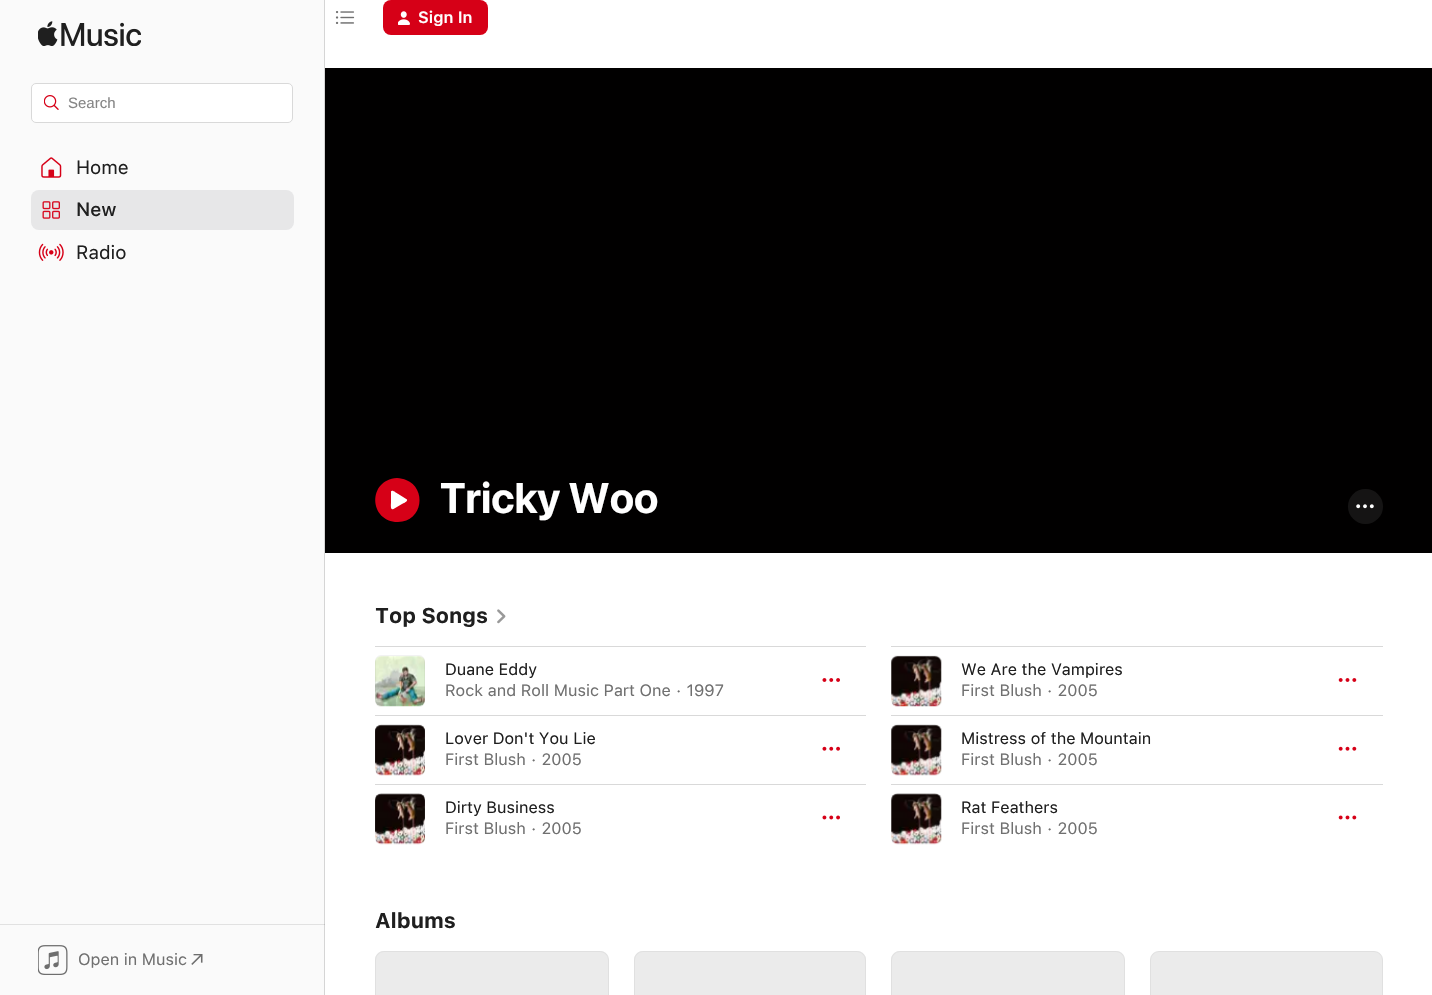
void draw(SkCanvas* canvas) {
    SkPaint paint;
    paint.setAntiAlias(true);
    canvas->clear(0xFFFFFFFF);
    canvas->drawImageRect(SkImages::DeferredFromEncodedData(SkData::MakeFromFileName("img1.png")), SkRect::MakeXYWH(335, 11, 20, 13), SkSamplingOptions());
    paint.setColor(0xFFD60017);
    canvas->drawRoundRect(SkRect::MakeXYWH(383, 0, 105, 35), 8, 8, paint);
    canvas->drawImageRect(SkImages::DeferredFromEncodedData(SkData::MakeFromFileName("img2.png")), SkRect::MakeXYWH(398, 11, 12, 14), SkSamplingOptions());
    SkFont font1(fontMgr->matchFamilyStyle("SF", SkFontStyle(600, SkFontStyle::kNormal_Width, SkFontStyle::kUpright_Slant)), 16.25f);
    font1.setSubpixel(true);
    paint.setColor(0xFFFFFFFF);
    canvas->drawString("Sign In", 418, 23, font1, paint);
    paint.setColor(0xFFFAFAFA);
    canvas->drawRect(SkRect::MakeXYWH(0, 0, 324, 995), paint);
    paint.setColor(0xFFE1E1E1);
    canvas->drawRect(SkRect::MakeXYWH(0, 924, 325, 1), paint);
    paint.setColor(0xFFD5D5D5);
    canvas->drawRect(SkRect::MakeXYWH(324, 0, 1, 995), paint);
    paint.setColor(0xFFC0C0C0);
    canvas->drawRect(SkRect::MakeXYWH(324, 924, 1, 1), paint);
    canvas->drawImageRect(SkImages::DeferredFromEncodedData(SkData::MakeFromFileName("img3.png")), SkRect::MakeXYWH(38, 21, 103, 25), SkSamplingOptions());
    paint.setColor(0xFFFFFFFF);
    canvas->drawRoundRect(SkRect::MakeXYWH(31.5f, 83.5f, 261, 39), 4.5f, 4.5f, paint);
    paint.setStyle(SkPaint::kStroke_Style);
    paint.setStrokeWidth(1);
    paint.setColor(0xFFD9D9D9);
    canvas->drawRoundRect(SkRect::MakeXYWH(31.5f, 83.5f, 261, 39), 4.5f, 4.5f, paint);
    canvas->drawImageRect(SkImages::DeferredFromEncodedData(SkData::MakeFromFileName("img4.png")), SkRect::MakeXYWH(44, 95, 15, 15), SkSamplingOptions());
    SkFont font2(fontMgr->matchFamilyStyle("Liberation Sans", SkFontStyle::Normal()), 15);
    font2.setSubpixel(true);
    paint.setStyle(SkPaint::kFill_Style);
    paint.setColor(0xFF858585);
    canvas->drawString("Search", 68, 108, font2, paint);
    canvas->drawImageRect(SkImages::DeferredFromEncodedData(SkData::MakeFromFileName("img5.png")), SkRect::MakeXYWH(41, 157, 21, 21), SkSamplingOptions());
    SkFont font3(fontMgr->matchFamilyStyle("SF", SkFontStyle::Normal()), 19);
    font3.setSubpixel(true);
    paint.setColor(0xFF1F1F1F);
    canvas->drawString("Home", 76, 174, font3, paint);
    paint.setColor(0xFFE7E7E8);
    canvas->drawRoundRect(SkRect::MakeXYWH(31, 190, 263, 40), 8, 8, paint);
    canvas->drawImageRect(SkImages::DeferredFromEncodedData(SkData::MakeFromFileName("img6.png")), SkRect::MakeXYWH(42, 201, 18, 18), SkSamplingOptions());
    SkFont font4(fontMgr->matchFamilyStyle("SF", SkFontStyle(500, SkFontStyle::kNormal_Width, SkFontStyle::kUpright_Slant)), 19);
    font4.setSubpixel(true);
    paint.setColor(0xFF1F1F1F);
    canvas->drawString("New", 76, 216, font4, paint);
    canvas->drawImageRect(SkImages::DeferredFromEncodedData(SkData::MakeFromFileName("img7.png")), SkRect::MakeXYWH(38, 243, 26, 18), SkSamplingOptions());
    canvas->drawString("Radio", 76, 259, font3, paint);
    canvas->drawImageRect(SkImages::DeferredFromEncodedData(SkData::MakeFromFileName("img8.png")), SkRect::MakeXYWH(38, 945, 30, 30), SkSamplingOptions());
    SkFont font5(fontMgr->matchFamilyStyle("SF", SkFontStyle::Normal()), 16.25f);
    font5.setSubpixel(true);
    paint.setColor(0xFF707070);
    canvas->drawString("Open in Music", 78, 965, font5, paint);
    canvas->drawImageRect(SkImages::DeferredFromEncodedData(SkData::MakeFromFileName("img9.png")), SkRect::MakeXYWH(191, 954, 12, 11), SkSamplingOptions());
    paint.setColor(0xFF010000);
    canvas->drawRect(SkRect::MakeXYWH(325, 68, 1107, 485), paint);
    paint.setColor(0xFFD60017);
    canvas->drawPath(SkPathBuilder().moveTo(398, 522).cubicTo(369, 522, 367, 480, 397, 478).cubicTo(400, 478, 404, 479, 406, 480).cubicTo(427, 488, 423, 522, 398, 522).close().detach(), paint);
    paint.setColor(0xFFFFFFFF);
    canvas->drawPath(SkPathBuilder().moveTo(393.5f, 509).cubicTo(390, 511, 391, 503.5f, 391, 502.5f).lineTo(391, 491.5f).cubicTo(392, 489, 397, 493.5f, 397.5f, 493.5f).lineTo(407, 499.5f).cubicTo(408, 501.5f, 403, 503.5f, 402, 504).close().detach(), paint);
    SkFont font6(fontMgr->matchFamilyStyle("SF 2", SkFontStyle::Bold()), 42.5f);
    font6.setSubpixel(true);
    canvas->drawString("Tricky Woo", 440, 513, font6, paint);
    paint.setColor(0xFF151414);
    canvas->drawCircle(1365.5f, 506.5f, 17.5f, paint);
    canvas->drawImageRect(SkImages::DeferredFromEncodedData(SkData::MakeFromFileName("img10.png")), SkRect::MakeXYWH(1356, 504, 18, 5), SkSamplingOptions());
    SkFont font7(fontMgr->matchFamilyStyle("SF", SkFontStyle::Bold()), 21.25f);
    font7.setSubpixel(true);
    paint.setColor(0xFF1F1F1F);
    canvas->drawString("Top Songs", 375, 623, font7, paint);
    canvas->drawImageRect(SkImages::DeferredFromEncodedData(SkData::MakeFromFileName("img11.png")), SkRect::MakeXYWH(497, 609, 9, 15), SkSamplingOptions());
    paint.setColor(0xFFD9D9D9);
    canvas->drawRect(SkRect::MakeXYWH(375, 646, 491, 1), paint);
    canvas->drawImageRect(SkImages::DeferredFromEncodedData(SkData::MakeFromFileName("img12.png")), SkRect::MakeXYWH(375, 656, 50, 51), SkSamplingOptions());
    paint.setStyle(SkPaint::kStroke_Style);
    paint.setColor(0x1A808080);
    canvas->drawRoundRect(SkRect::MakeXYWH(375.5f, 655.5f, 49, 49), 5.5f, 5.5f, paint);
    paint.setStyle(SkPaint::kFill_Style);
    paint.setColor(0xFF1F1F1F);
    canvas->drawString("Duane Eddy", 445, 675, font5, paint);
    paint.setColor(0xFF707070);
    canvas->drawString("Rock and Roll Music Part One · 1997", 445, 696, font5, paint);
    canvas->drawImageRect(SkImages::DeferredFromEncodedData(SkData::MakeFromFileName("img13.png")), SkRect::MakeXYWH(822, 678, 18, 4), SkSamplingOptions());
    paint.setColor(0xFFD9D9D9);
    canvas->drawRect(SkRect::MakeXYWH(891, 646, 492, 1), paint);
    canvas->drawImageRect(SkImages::DeferredFromEncodedData(SkData::MakeFromFileName("img14.png")), SkRect::MakeXYWH(891, 656, 51, 51), SkSamplingOptions());
    paint.setStyle(SkPaint::kStroke_Style);
    paint.setColor(0x1A808080);
    canvas->drawRoundRect(SkRect::MakeXYWH(891.5f, 655.5f, 49, 49), 5.5f, 5.5f, paint);
    paint.setStyle(SkPaint::kFill_Style);
    paint.setColor(0xFF1F1F1F);
    canvas->drawString("We Are the Vampires", 961, 675, font5, paint);
    paint.setColor(0xFF707070);
    canvas->drawString("First Blush · 2005", 961, 696, font5, paint);
    canvas->drawImageRect(SkImages::DeferredFromEncodedData(SkData::MakeFromFileName("img15.png")), SkRect::MakeXYWH(1338, 678, 19, 4), SkSamplingOptions());
    paint.setColor(0xFFD9D9D9);
    canvas->drawRect(SkRect::MakeXYWH(375, 715, 491, 1), paint);
    canvas->drawImageRect(SkImages::DeferredFromEncodedData(SkData::MakeFromFileName("img16.png")), SkRect::MakeXYWH(375, 724, 50, 52), SkSamplingOptions());
    paint.setStyle(SkPaint::kStroke_Style);
    paint.setColor(0x1A808080);
    canvas->drawRoundRect(SkRect::MakeXYWH(375.5f, 724.5f, 49, 49), 5.5f, 5.5f, paint);
    paint.setStyle(SkPaint::kFill_Style);
    paint.setColor(0xFF1F1F1F);
    canvas->drawString("Lover Don't You Lie", 445, 744, font5, paint);
    paint.setColor(0xFF707070);
    canvas->drawString("First Blush · 2005", 445, 765, font5, paint);
    canvas->drawImageRect(SkImages::DeferredFromEncodedData(SkData::MakeFromFileName("img17.png")), SkRect::MakeXYWH(822, 746, 18, 5), SkSamplingOptions());
    paint.setColor(0xFFD9D9D9);
    canvas->drawRect(SkRect::MakeXYWH(891, 715, 492, 1), paint);
    canvas->drawImageRect(SkImages::DeferredFromEncodedData(SkData::MakeFromFileName("img18.png")), SkRect::MakeXYWH(891, 724, 51, 52), SkSamplingOptions());
    paint.setStyle(SkPaint::kStroke_Style);
    paint.setColor(0x1A808080);
    canvas->drawRoundRect(SkRect::MakeXYWH(891.5f, 724.5f, 49, 49), 5.5f, 5.5f, paint);
    paint.setStyle(SkPaint::kFill_Style);
    paint.setColor(0xFF1F1F1F);
    canvas->drawString("Mistress of the Mountain", 961, 744, font5, paint);
    paint.setColor(0xFF707070);
    canvas->drawString("First Blush · 2005", 961, 765, font5, paint);
    canvas->drawImageRect(SkImages::DeferredFromEncodedData(SkData::MakeFromFileName("img19.png")), SkRect::MakeXYWH(1338, 746, 19, 5), SkSamplingOptions());
    paint.setColor(0xFFD9D9D9);
    canvas->drawRect(SkRect::MakeXYWH(375, 784, 491, 1), paint);
    canvas->drawImageRect(SkImages::DeferredFromEncodedData(SkData::MakeFromFileName("img20.png")), SkRect::MakeXYWH(375, 793, 50, 52), SkSamplingOptions());
    paint.setStyle(SkPaint::kStroke_Style);
    paint.setColor(0x1A808080);
    canvas->drawRoundRect(SkRect::MakeXYWH(375.5f, 793.5f, 49, 49), 5.5f, 5.5f, paint);
    paint.setStyle(SkPaint::kFill_Style);
    paint.setColor(0xFF1F1F1F);
    canvas->drawString("Dirty Business", 445, 813, font5, paint);
    paint.setColor(0xFF707070);
    canvas->drawString("First Blush · 2005", 445, 834, font5, paint);
    canvas->drawImageRect(SkImages::DeferredFromEncodedData(SkData::MakeFromFileName("img21.png")), SkRect::MakeXYWH(822, 815, 18, 5), SkSamplingOptions());
    paint.setColor(0xFFD9D9D9);
    canvas->drawRect(SkRect::MakeXYWH(891, 784, 492, 1), paint);
    canvas->drawImageRect(SkImages::DeferredFromEncodedData(SkData::MakeFromFileName("img22.png")), SkRect::MakeXYWH(891, 793, 51, 52), SkSamplingOptions());
    paint.setStyle(SkPaint::kStroke_Style);
    paint.setColor(0x1A808080);
    canvas->drawRoundRect(SkRect::MakeXYWH(891.5f, 793.5f, 49, 49), 5.5f, 5.5f, paint);
    paint.setStyle(SkPaint::kFill_Style);
    paint.setColor(0xFF1F1F1F);
    canvas->drawString("Rat Feathers", 961, 813, font5, paint);
    paint.setColor(0xFF707070);
    canvas->drawString("First Blush · 2005", 961, 834, font5, paint);
    canvas->drawImageRect(SkImages::DeferredFromEncodedData(SkData::MakeFromFileName("img23.png")), SkRect::MakeXYWH(1338, 815, 19, 5), SkSamplingOptions());
    paint.setColor(0xFF1F1F1F);
    canvas->drawString("Albums", 375, 928, font7, paint);
    paint.setColor(0xFFEBEBEB);
    canvas->drawPath(SkPathBuilder().moveTo(384, 951).lineTo(600, 951).cubicTo(605, 951, 609, 955, 609, 960).lineTo(609, 995).lineTo(375, 995).lineTo(375, 960).cubicTo(375, 955, 379, 951, 384, 951).close().detach(), paint);
    canvas->drawImageRect(SkImages::DeferredFromEncodedData(SkData::MakeFromFileName("img24.png")), SkRect::MakeXYWH(375, 951, 233, 9), SkSamplingOptions());
    paint.setStyle(SkPaint::kStroke_Style);
    paint.setColor(0x1A808080);
    canvas->drawRoundRect(SkRect::MakeXYWH(375.5f, 951.5f, 233, 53), 8.5f, 8.5f, paint);
    paint.setStyle(SkPaint::kFill_Style);
    paint.setColor(0xFFEBEBEB);
    canvas->drawPath(SkPathBuilder().moveTo(643, 951).lineTo(857, 951).cubicTo(862, 951, 866, 955, 866, 960).lineTo(866, 995).lineTo(634, 995).lineTo(634, 960).cubicTo(634, 955, 638, 951, 643, 951).close().detach(), paint);
    canvas->drawImageRect(SkImages::DeferredFromEncodedData(SkData::MakeFromFileName("img25.png")), SkRect::MakeXYWH(634, 951, 232, 9), SkSamplingOptions());
    paint.setStyle(SkPaint::kStroke_Style);
    paint.setColor(0x1A808080);
    canvas->drawRoundRect(SkRect::MakeXYWH(634.5f, 951.5f, 231, 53), 8.5f, 8.5f, paint);
    paint.setStyle(SkPaint::kFill_Style);
    paint.setColor(0xFFEBEBEB);
    canvas->drawPath(SkPathBuilder().moveTo(900, 951).lineTo(1116, 951).cubicTo(1121, 951, 1125, 955, 1125, 960).lineTo(1125, 995).lineTo(891, 995).lineTo(891, 960).cubicTo(891, 955, 895, 951, 900, 951).close().detach(), paint);
    canvas->drawImageRect(SkImages::DeferredFromEncodedData(SkData::MakeFromFileName("img26.png")), SkRect::MakeXYWH(891, 951, 233, 9), SkSamplingOptions());
    paint.setStyle(SkPaint::kStroke_Style);
    paint.setColor(0x1A808080);
    canvas->drawRoundRect(SkRect::MakeXYWH(891.5f, 951.5f, 233, 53), 8.5f, 8.5f, paint);
    paint.setStyle(SkPaint::kFill_Style);
    paint.setColor(0xFFEBEBEB);
    canvas->drawPath(SkPathBuilder().moveTo(1159, 951).lineTo(1374, 951).cubicTo(1379, 951, 1383, 955, 1383, 960).lineTo(1383, 995).lineTo(1150, 995).lineTo(1150, 960).cubicTo(1150, 955, 1154, 951, 1159, 951).close().detach(), paint);
    paint.setStyle(SkPaint::kStroke_Style);
    paint.setColor(0x1A808080);
    canvas->drawRoundRect(SkRect::MakeXYWH(1150.5f, 951.5f, 232, 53), 8.5f, 8.5f, paint);
}
